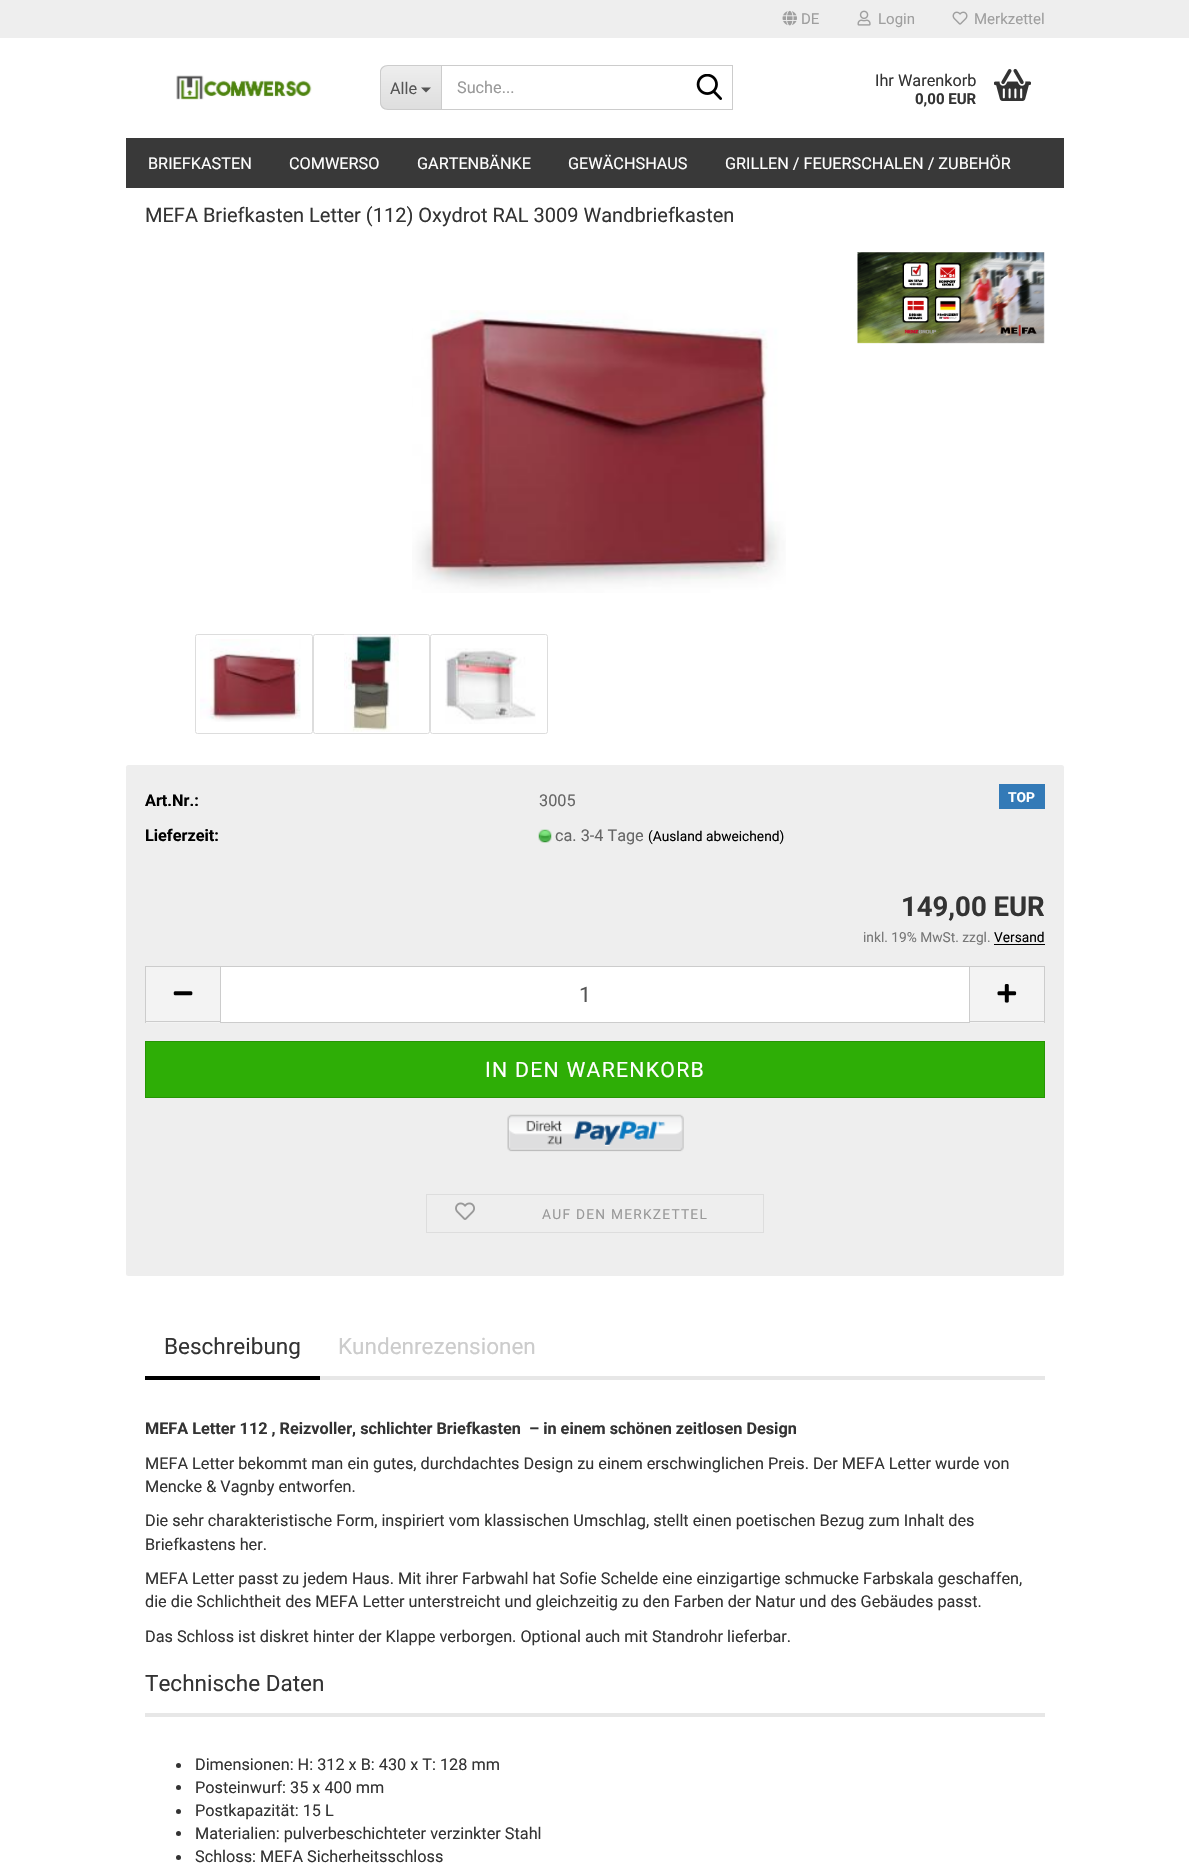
void draw(SkCanvas* canvas) {
    SkPaint paint;
    paint.setAntiAlias(true);
    auto spacedText = [&](const char* s, float x, float y, const SkFont& font, const SkPaint& ink, float letter, float word) {
        std::vector<SkGlyphID> glyphs(font.countText(s, strlen(s), SkTextEncoding::kUTF8));
        std::vector<float> xs(glyphs.size());
        font.textToGlyphs(s, strlen(s), SkTextEncoding::kUTF8, glyphs);
        font.getXPos(glyphs, xs, x);
        float extra = 0;
        for (size_t i = 0; i < glyphs.size(); i++) {
            xs[i] += extra;
            extra += letter + word * (glyphs[i] == font.unicharToGlyph(' '));
        }
        canvas->drawTextBlob(SkTextBlob::MakeFromPosHGlyphs(glyphs, xs, y, font), 0, 0, ink);
    };
    canvas->clear(0xFFFFFFFF);
    paint.setColor(0xFFEEEEEE);
    canvas->drawRect(SkRect::MakeXYWH(0, 0, 1189, 38), paint);
    canvas->drawImageRect(SkImages::DeferredFromEncodedData(SkData::MakeFromFileName("img1.png")), SkRect::MakeXYWH(782, 10, 15, 16), SkSamplingOptions());
    SkFont font1(fontMgr->matchFamilyStyle("Roboto", SkFontStyle::Normal()), 15);
    font1.setSubpixel(true);
    paint.setColor(0xFF9F9F9F);
    canvas->drawString("DE", 801, 24, font1, paint);
    canvas->drawImageRect(SkImages::DeferredFromEncodedData(SkData::MakeFromFileName("img2.png")), SkRect::MakeXYWH(857, 10, 14, 16), SkSamplingOptions());
    canvas->drawString("Login", 878, 24, font1, paint);
    canvas->drawImageRect(SkImages::DeferredFromEncodedData(SkData::MakeFromFileName("img3.png")), SkRect::MakeXYWH(952, 11, 16, 14), SkSamplingOptions());
    canvas->drawString("Merkzettel", 974, 24, font1, paint);
    canvas->drawImageRect(SkImages::DeferredFromEncodedData(SkData::MakeFromFileName("img4.png")), SkRect::MakeXYWH(176, 75, 136, 25), SkSamplingOptions());
    canvas->save();
    canvas->clipPath(SkPathBuilder().moveTo(388, 65).lineTo(441, 65).lineTo(441, 110).lineTo(388, 110).cubicTo(383.5f, 110, 380, 106.5f, 380, 102).lineTo(380, 73).cubicTo(380, 68.5f, 383.5f, 65, 388, 65).close().detach(), true);
    {
        const SkColor colors[] = {0xFFEEEEEE, 0xFFDEDEDE};
        const float stops[] = {0, 1};
        const SkPoint ends[] = {{411, 66}, {411, 109}};
        paint.setShader(SkGradientShader::MakeLinear(ends, colors, stops, 2, SkTileMode::kClamp));
        paint.setAlpha(255);
    }
    canvas->drawRect(SkRect::MakeXYWH(380, 66, 61, 43), paint);
    canvas->restore();
    paint.setShader(nullptr);
    paint.setColor(0xFFCCCCCC);
    canvas->drawPath(SkPathBuilder(SkPathFillType::kEvenOdd).moveTo(388, 65).lineTo(441, 65).lineTo(441, 110).lineTo(388, 110).cubicTo(383, 110, 380, 107, 380, 102).lineTo(380, 72).cubicTo(380, 68, 383, 65, 388, 65).close().moveTo(388, 66).lineTo(441, 66).lineTo(441, 109).lineTo(388, 109).cubicTo(384, 109, 381, 106, 381, 102).lineTo(381, 72).cubicTo(381, 69, 384, 66, 388, 66).close().detach(), paint);
    SkFont font2(fontMgr->matchFamilyStyle("Roboto", SkFontStyle::Normal()), 16.25f);
    font2.setSubpixel(true);
    paint.setColor(0xFF555555);
    canvas->drawString("Alle", 390, 94, font2, paint);
    canvas->drawPath(SkPathBuilder().moveTo(421, 87.5f).lineTo(431, 87.5f).lineTo(426, 92.5f).close().detach(), paint);
    paint.setStyle(SkPaint::kStroke_Style);
    paint.setStrokeWidth(1);
    paint.setColor(0xFFCCCCCC);
    canvas->drawRect(SkRect::MakeXYWH(441.5f, 65.5f, 291, 44), paint);
    paint.setStyle(SkPaint::kFill_Style);
    paint.setColor(0xFF999999);
    canvas->drawString("Suche...", 457, 93, font2, paint);
    canvas->drawImageRect(SkImages::DeferredFromEncodedData(SkData::MakeFromFileName("img5.png")), SkRect::MakeXYWH(696, 74, 26, 26), SkSamplingOptions());
    paint.setColor(0xFF333333);
    canvas->drawString("Ihr Warenkorb", 875, 86, font2, paint);
    SkFont font3(fontMgr->matchFamilyStyle("Roboto", SkFontStyle::Bold()), 15);
    font3.setSubpixel(true);
    canvas->drawString("0,00 EUR", 915, 104, font3, paint);
    canvas->drawImageRect(SkImages::DeferredFromEncodedData(SkData::MakeFromFileName("img6.png")), SkRect::MakeXYWH(994, 68, 37, 33), SkSamplingOptions());
    paint.setColor(0xFF393939);
    canvas->drawRect(SkRect::MakeXYWH(126, 138, 938, 50), paint);
    paint.setColor(0xFFFFFFFF);
    canvas->drawString("BRIEFKASTEN", 148, 169, font2, paint);
    canvas->drawString("COMWERSO", 289, 169, font2, paint);
    canvas->drawString("GARTENBÄNKE", 417, 169, font2, paint);
    canvas->drawString("GEWÄCHSHAUS", 568, 169, font2, paint);
    canvas->drawString("GRILLEN / FEUERSCHALEN / ZUBEHÖR", 725, 169, font2, paint);
    SkFont font4(fontMgr->matchFamilyStyle("Roboto", SkFontStyle::Normal()), 20);
    font4.setSubpixel(true);
    paint.setColor(0xFF333333);
    canvas->drawString("MEFA Briefkasten Letter (112) Oxydrot RAL 3009 Wandbriefkasten", 145, 222, font4, paint);
    canvas->drawImageRect(SkImages::DeferredFromEncodedData(SkData::MakeFromFileName("img7.png")), SkRect::MakeXYWH(857, 252, 188, 92), SkSamplingOptions());
    canvas->drawImageRect(SkImages::DeferredFromEncodedData(SkData::MakeFromFileName("img8.png")), SkRect::MakeXYWH(412, 310, 374, 283), SkSamplingOptions());
    paint.setStyle(SkPaint::kStroke_Style);
    paint.setColor(0xFFDDDDDD);
    canvas->drawRoundRect(SkRect::MakeXYWH(195.5f, 634.5f, 117, 99), 2, 2, paint);
    canvas->drawImageRect(SkImages::DeferredFromEncodedData(SkData::MakeFromFileName("img9.png")), SkRect::MakeXYWH(200, 639, 101, 83), SkSamplingOptions());
    canvas->drawRoundRect(SkRect::MakeXYWH(313.5f, 634.5f, 116, 99), 2, 2, paint);
    canvas->drawImageRect(SkImages::DeferredFromEncodedData(SkData::MakeFromFileName("img10.png")), SkRect::MakeXYWH(344, 634, 55, 98), SkSamplingOptions());
    canvas->drawRoundRect(SkRect::MakeXYWH(430.5f, 634.5f, 117, 99), 2, 2, paint);
    canvas->drawImageRect(SkImages::DeferredFromEncodedData(SkData::MakeFromFileName("img11.png")), SkRect::MakeXYWH(445, 648, 91, 76), SkSamplingOptions());
    paint.setStyle(SkPaint::kFill_Style);
    paint.setColor(0xFFEEEEEE);
    canvas->drawRoundRect(SkRect::MakeXYWH(126, 765, 938, 511), 2.5f, 2.5f, paint);
    paint.setColor(0xFF337AB7);
    canvas->drawRect(SkRect::MakeXYWH(999, 784, 46, 25), paint);
    SkFont font5(fontMgr->matchFamilyStyle("Roboto", SkFontStyle::Bold()), 13.75f);
    font5.setSubpixel(true);
    paint.setColor(0xFFFFFFFF);
    canvas->drawString("TOP", 1008, 802, font5, paint);
    SkFont font6(fontMgr->matchFamilyStyle("Roboto", SkFontStyle::Bold()), 16.25f);
    font6.setSubpixel(true);
    paint.setColor(0xFF000000);
    canvas->drawString("Art.Nr.:", 145, 806, font6, paint);
    paint.setColor(0xFF666666);
    canvas->drawString("3005", 539, 806, font2, paint);
    paint.setColor(0xFF000000);
    canvas->drawString("Lieferzeit:", 145, 841, font6, paint);
    canvas->drawImageRect(SkImages::DeferredFromEncodedData(SkData::MakeFromFileName("img12.png")), SkRect::MakeXYWH(538, 829, 14, 14), SkSamplingOptions());
    paint.setColor(0xFF666666);
    canvas->drawString("ca. 3-4 Tage", 555, 841, font2, paint);
    SkFont font7(fontMgr->matchFamilyStyle("Roboto", SkFontStyle::Normal()), 13.75f);
    font7.setSubpixel(true);
    paint.setColor(0xFF000000);
    canvas->drawString("(Ausland abweichend)", 648, 841, font7, paint);
    SkFont font8(fontMgr->matchFamilyStyle("Roboto", SkFontStyle::Bold()), 27.5f);
    font8.setSubpixel(true);
    paint.setColor(0xFF333333);
    canvas->drawString("149,00 EUR", 901, 916, font8, paint);
    paint.setColor(0xFF777777);
    canvas->drawString("inkl. 19% MwSt. zzgl.", 863, 942, font7, paint);
    paint.setColor(0xFF000000);
    canvas->drawString("Versand", 994, 942, font7, paint);
    canvas->drawRect(SkRect::MakeXYWH(994, 944, 51, 1), paint);
    paint.setColor(0xFFF3F3F3);
    canvas->drawRect(SkRect::MakeXYWH(146, 967, 74, 56), paint);
    paint.setColor(0xFFCCCCCC);
    canvas->drawRect(SkRect::MakeXYWH(145, 966, 75, 1), paint);
    canvas->drawRect(SkRect::MakeXYWH(145, 1021, 75, 1), paint);
    canvas->drawRect(SkRect::MakeXYWH(145, 966, 1, 57), paint);
    canvas->drawImageRect(SkImages::DeferredFromEncodedData(SkData::MakeFromFileName("img13.png")), SkRect::MakeXYWH(173, 991, 20, 5), SkSamplingOptions());
    paint.setColor(0xFFFFFFFF);
    canvas->drawRect(SkRect::MakeXYWH(220.5f, 966.5f, 749, 56), paint);
    paint.setStyle(SkPaint::kStroke_Style);
    paint.setColor(0xFFCCCCCC);
    canvas->drawRect(SkRect::MakeXYWH(220.5f, 966.5f, 749, 56), paint);
    SkFont font9(fontMgr->matchFamilyStyle("Roboto", SkFontStyle::Normal()), 21.25f);
    font9.setSubpixel(true);
    paint.setStyle(SkPaint::kFill_Style);
    paint.setColor(0xFF555555);
    canvas->drawString("1", 579, 1002, font9, paint);
    paint.setColor(0xFFF3F3F3);
    canvas->drawRect(SkRect::MakeXYWH(970, 967, 74, 56), paint);
    paint.setColor(0xFFCCCCCC);
    canvas->drawRect(SkRect::MakeXYWH(970, 966, 75, 1), paint);
    canvas->drawRect(SkRect::MakeXYWH(1044, 966, 1, 57), paint);
    canvas->drawRect(SkRect::MakeXYWH(970, 1021, 75, 1), paint);
    canvas->drawImageRect(SkImages::DeferredFromEncodedData(SkData::MakeFromFileName("img14.png")), SkRect::MakeXYWH(997, 984, 20, 19), SkSamplingOptions());
    paint.setColor(0xFF2EAE06);
    canvas->drawRect(SkRect::MakeXYWH(145.5f, 1041.5f, 899, 56), paint);
    paint.setStyle(SkPaint::kStroke_Style);
    paint.setColor(0xFF279505);
    canvas->drawRect(SkRect::MakeXYWH(145.5f, 1041.5f, 899, 56), paint);
    paint.setStyle(SkPaint::kFill_Style);
    paint.setColor(0xFFFFFFFF);
    spacedText("IN DEN WARENKORB", 485, 1077, font9, paint, 1.25f, 0);
    canvas->drawImageRect(SkImages::DeferredFromEncodedData(SkData::MakeFromFileName("img15.png")), SkRect::MakeXYWH(507, 1114, 177, 38), SkSamplingOptions());
    paint.setStyle(SkPaint::kStroke_Style);
    paint.setColor(0xFFDDDDDD);
    canvas->drawRect(SkRect::MakeXYWH(426.5f, 1194.5f, 337, 38), paint);
    canvas->drawImageRect(SkImages::DeferredFromEncodedData(SkData::MakeFromFileName("img16.png")), SkRect::MakeXYWH(455, 1202, 20, 18), SkSamplingOptions());
    paint.setStyle(SkPaint::kFill_Style);
    paint.setColor(0xFF999999);
    spacedText("AUF DEN MERKZETTEL", 542, 1219, font7, paint, 1.25f, 0);
    paint.setColor(0xFFE7E7E7);
    canvas->drawRect(SkRect::MakeXYWH(320, 1376, 725, 4), paint);
    paint.setColor(0xFF000000);
    canvas->drawRect(SkRect::MakeXYWH(145, 1376, 175, 4), paint);
    SkFont font10(fontMgr->matchFamilyStyle("Roboto", SkFontStyle::Normal()), 22.5f);
    font10.setSubpixel(true);
    paint.setColor(0xFF333333);
    canvas->drawString("Beschreibung", 164, 1354, font10, paint);
    paint.setColor(0xFFCCCCCC);
    canvas->drawString("Kundenrezensionen", 338, 1354, font10, paint);
    paint.setColor(0xFF333333);
    canvas->drawString("MEFA Letter 112 , Reizvoller, schlichter Briefkasten  – in einem schönen zeitlosen Design", 145, 1434, font6, paint);
    canvas->drawString("MEFA Letter bekommt man ein gutes, durchdachtes Design zu einem erschwinglichen Preis. Der MEFA Letter wurde von", 145, 1469, font2, paint);
    canvas->drawString("Mencke & Vagnby entworfen.", 145, 1492, font2, paint);
    canvas->drawString("Die sehr charakteristische Form, inspiriert vom klassischen Umschlag, stellt einen poetischen Bezug zum Inhalt des", 145, 1526, font2, paint);
    canvas->drawString("Briefkastens her.", 145, 1550, font2, paint);
    canvas->drawString("MEFA Letter passt zu jedem Haus. Mit ihrer Farbwahl hat Sofie Schelde eine einzigartige schmucke Farbskala geschaffen,", 145, 1584, font2, paint);
    canvas->drawString("die die Schlichtheit des MEFA Letter unterstreicht und gleichzeitig zu den Farben der Natur und des Gebäudes passt.", 145, 1607, font2, paint);
    canvas->drawString("Das Schloss ist diskret hinter der Klappe verborgen. Optional auch mit Standrohr lieferbar.", 145, 1642, font2, paint);
    paint.setColor(0xFFE7E7E7);
    canvas->drawRect(SkRect::MakeXYWH(145, 1713, 900, 4), paint);
    paint.setColor(0xFF333333);
    canvas->drawString("Technische Daten", 145, 1691, font10, paint);
    canvas->drawCircle(178.5f, 1765.5f, 2.5f, paint);
    canvas->drawString("Dimensionen: H: 312 x B: 430 x T: 128 mm", 195, 1770, font2, paint);
    canvas->drawCircle(178.5f, 1787.5f, 2.5f, paint);
    canvas->drawString("Posteinwurf: 35 x 400 mm", 195, 1793, font2, paint);
    canvas->drawCircle(178.5f, 1811.5f, 2.5f, paint);
    canvas->drawString("Postkapazität: 15 L", 195, 1816, font2, paint);
    canvas->drawCircle(178.5f, 1833.5f, 2.5f, paint);
    canvas->drawString("Materialien: pulverbeschichteter verzinkter Stahl", 195, 1839, font2, paint);
    canvas->drawCircle(178.5f, 1857.5f, 2.5f, paint);
    canvas->drawString("Schloss: MEFA Sicherheitsschloss", 195, 1862, font2, paint);
}
